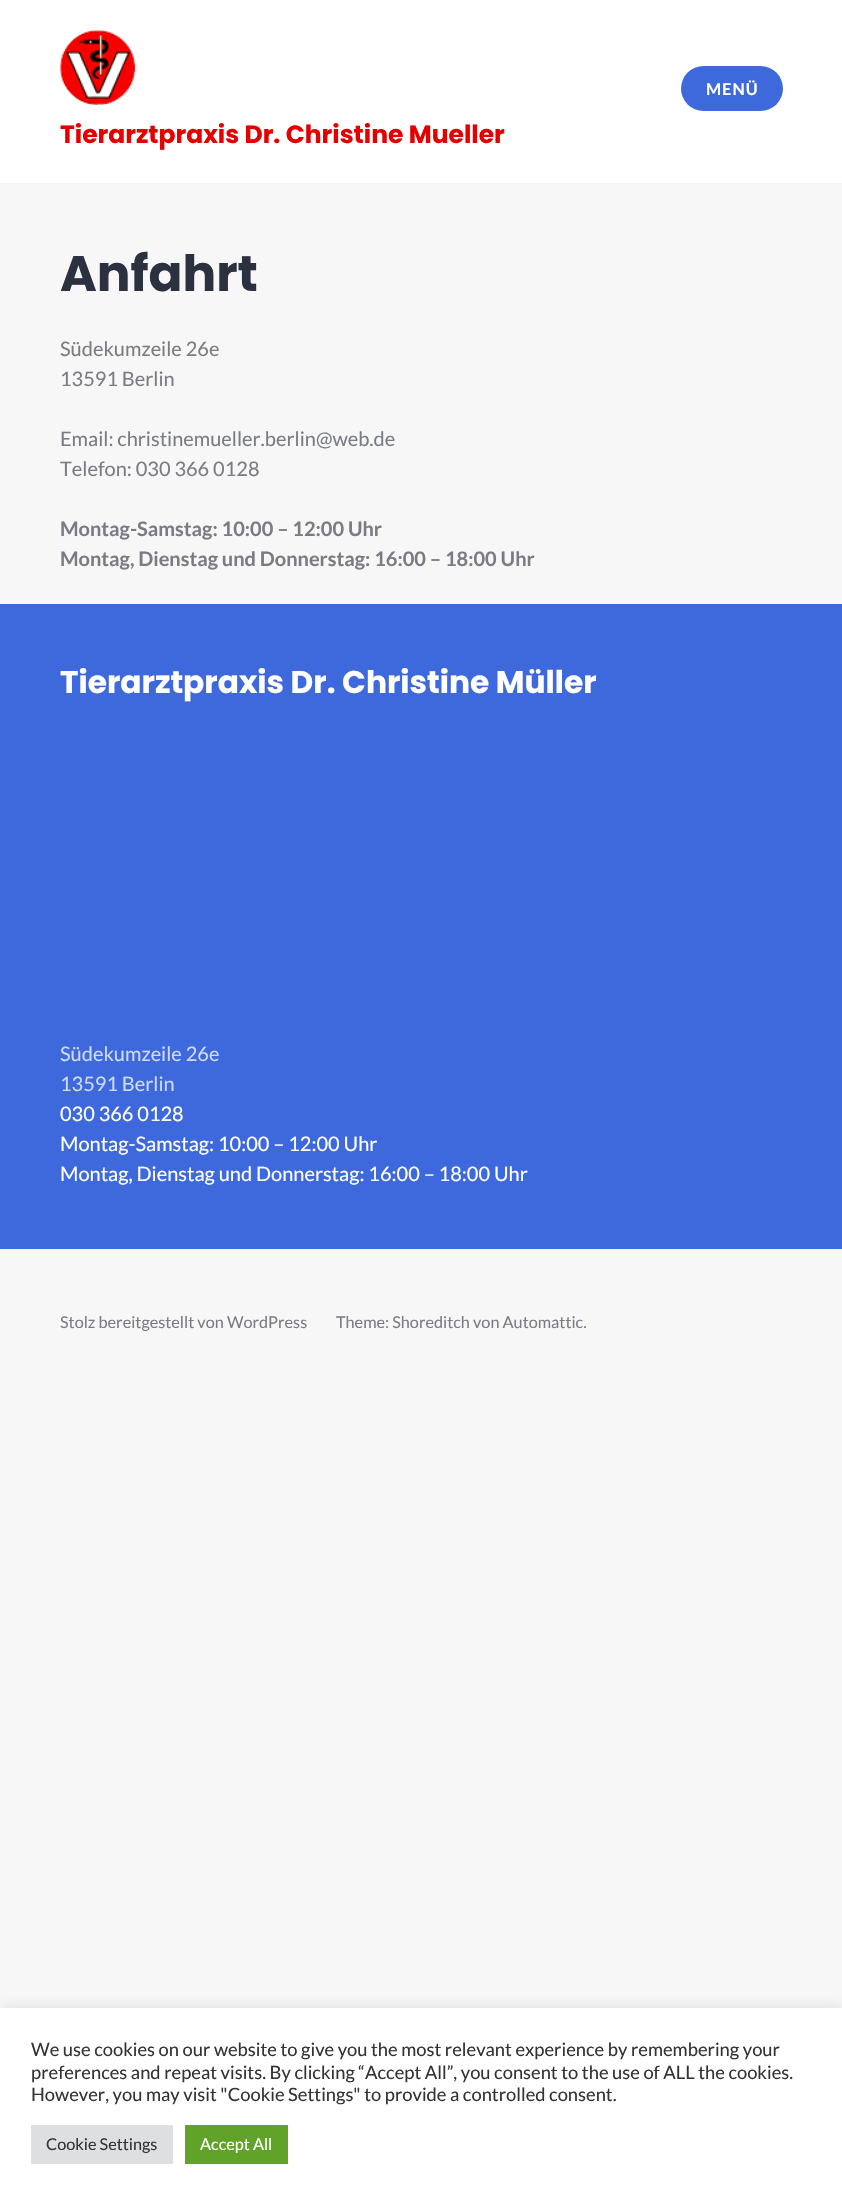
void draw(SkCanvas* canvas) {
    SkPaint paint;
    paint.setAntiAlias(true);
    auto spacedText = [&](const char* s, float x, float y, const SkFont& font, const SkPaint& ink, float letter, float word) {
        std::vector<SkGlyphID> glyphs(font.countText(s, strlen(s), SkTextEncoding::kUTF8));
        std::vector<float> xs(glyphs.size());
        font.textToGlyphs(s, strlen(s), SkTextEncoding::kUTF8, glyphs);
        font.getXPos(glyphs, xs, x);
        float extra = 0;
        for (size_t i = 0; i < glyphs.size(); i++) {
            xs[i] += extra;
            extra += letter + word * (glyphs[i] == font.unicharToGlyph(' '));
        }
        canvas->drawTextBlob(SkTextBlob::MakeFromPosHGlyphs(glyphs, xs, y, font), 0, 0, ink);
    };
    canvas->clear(0xFFF7F7F7);
    paint.setColor(0xFFFFFFFF);
    canvas->drawRect(SkRect::MakeXYWH(0, 0, 842, 183), paint);
    paint.setColor(0xFFF3F3F3);
    canvas->drawRect(SkRect::MakeXYWH(0, 183, 842, 1), paint);
    paint.setColor(0xFF3E69DC);
    canvas->drawRoundRect(SkRect::MakeXYWH(681, 66, 102, 45), 22.5f, 22.5f, paint);
    SkFont font1(fontMgr->matchFamilyStyle("Lato", SkFontStyle::Bold()), 16.25f);
    font1.setSubpixel(true);
    paint.setColor(0xFFFFFFFF);
    spacedText("MENÜ", 706, 95, font1, paint, 1, 0);
    canvas->drawImageRect(SkImages::DeferredFromEncodedData(SkData::MakeFromFileName("img1.png")), SkRect::MakeXYWH(60, 30, 75, 75), SkSamplingOptions());
    SkFont font2(fontMgr->matchFamilyStyle("Poppins", SkFontStyle::Bold()), 25);
    font2.setSubpixel(true);
    paint.setColor(0xFFE50000);
    canvas->drawString("Tierarztpraxis Dr. Christine Mueller", 60, 143, font2, paint);
    SkFont font3(fontMgr->matchFamilyStyle("Poppins", SkFontStyle::Bold()), 50);
    font3.setSubpixel(true);
    paint.setColor(0xFF2C313F);
    canvas->drawString("Anfahrt", 60, 291, font3, paint);
    SkFont font4(fontMgr->matchFamilyStyle("Lato", SkFontStyle::Normal()), 20);
    font4.setSubpixel(true);
    paint.setColor(0xFF7A7C84);
    canvas->drawString("Südekumzeile 26e", 60, 356, font4, paint);
    canvas->drawString("13591 Berlin", 60, 386, font4, paint);
    canvas->drawString("Email: christinemueller.berlin@web.de", 60, 446, font4, paint);
    canvas->drawString("Telefon: 030 366 0128", 60, 476, font4, paint);
    SkFont font5(fontMgr->matchFamilyStyle("Lato", SkFontStyle::Bold()), 20);
    font5.setSubpixel(true);
    canvas->drawString("Montag-Samstag: 10:00 – 12:00 Uhr", 60, 536, font5, paint);
    canvas->drawString("Montag, Dienstag und Donnerstag: 16:00 – 18:00 Uhr", 60, 566, font5, paint);
    paint.setColor(0xFF3E69DC);
    canvas->drawRect(SkRect::MakeXYWH(0, 604, 842, 645), paint);
    SkFont font6(fontMgr->matchFamilyStyle("Poppins", SkFontStyle::Bold()), 31.25f);
    font6.setSubpixel(true);
    paint.setColor(0xFFFFFFFF);
    canvas->drawString("Tierarztpraxis Dr. Christine Müller", 60, 693, font6, paint);
    paint.setColor(0xFFCFDAF6);
    canvas->drawString("Südekumzeile 26e", 60, 1061, font4, paint);
    canvas->drawString("13591 Berlin", 60, 1091, font4, paint);
    paint.setColor(0xFFFFFFFF);
    canvas->drawString("030 366 0128", 60, 1121, font4, paint);
    canvas->drawString("Montag-Samstag: 10:00 – 12:00 Uhr", 60, 1151, font4, paint);
    canvas->drawString("Montag, Dienstag und Donnerstag: 16:00 – 18:00 Uhr", 60, 1181, font4, paint);
    paint.setColor(0xFFF3F3F3);
    canvas->drawRect(SkRect::MakeXYWH(0, 1249, 842, 1), paint);
    SkFont font7(fontMgr->matchFamilyStyle("Lato", SkFontStyle::Normal()), 16.25f);
    font7.setSubpixel(true);
    paint.setColor(0xFF7A7C84);
    canvas->drawString("Stolz bereitgestellt von WordPress", 60, 1328, font7, paint);
    canvas->drawString("Theme: Shoreditch von Automattic.", 336, 1328, font7, paint);
    paint.setColor(0x4DACABAB);
    paint.setMaskFilter(SkMaskFilter::MakeBlur(kNormal_SkBlurStyle, 6));
    canvas->drawRect(SkRect::MakeXYWH(0, 2006, 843, 194), paint);
    paint.setMaskFilter(nullptr);
    paint.setColor(0xFFFFFFFF);
    canvas->drawRect(SkRect::MakeXYWH(0, 2008, 842, 193), paint);
    SkFont font8(fontMgr->matchFamilyStyle("Lato", SkFontStyle::Normal()), 18.35f);
    font8.setSubpixel(true);
    paint.setColor(0xFF333333);
    canvas->drawString("We use cookies on our website to give you the most relevant experience by remembering your", 31, 2056, font8, paint);
    canvas->drawString("preferences and repeat visits. By clicking “Accept All”, you consent to the use of ALL the cookies.", 31, 2079, font8, paint);
    canvas->drawString("However, you may visit \"Cookie Settings\" to provide a controlled consent.", 31, 2101, font8, paint);
    paint.setColor(0xFFDEDFE0);
    canvas->drawRect(SkRect::MakeXYWH(31, 2125, 142, 39), paint);
    paint.setColor(0xFF333333);
    canvas->drawString("Cookie Settings", 46, 2150, font7, paint);
    paint.setColor(0xFF61A229);
    canvas->drawRect(SkRect::MakeXYWH(185, 2125, 103, 39), paint);
    paint.setColor(0xFFFFFFFF);
    canvas->drawString("Accept All", 200, 2150, font7, paint);
}
